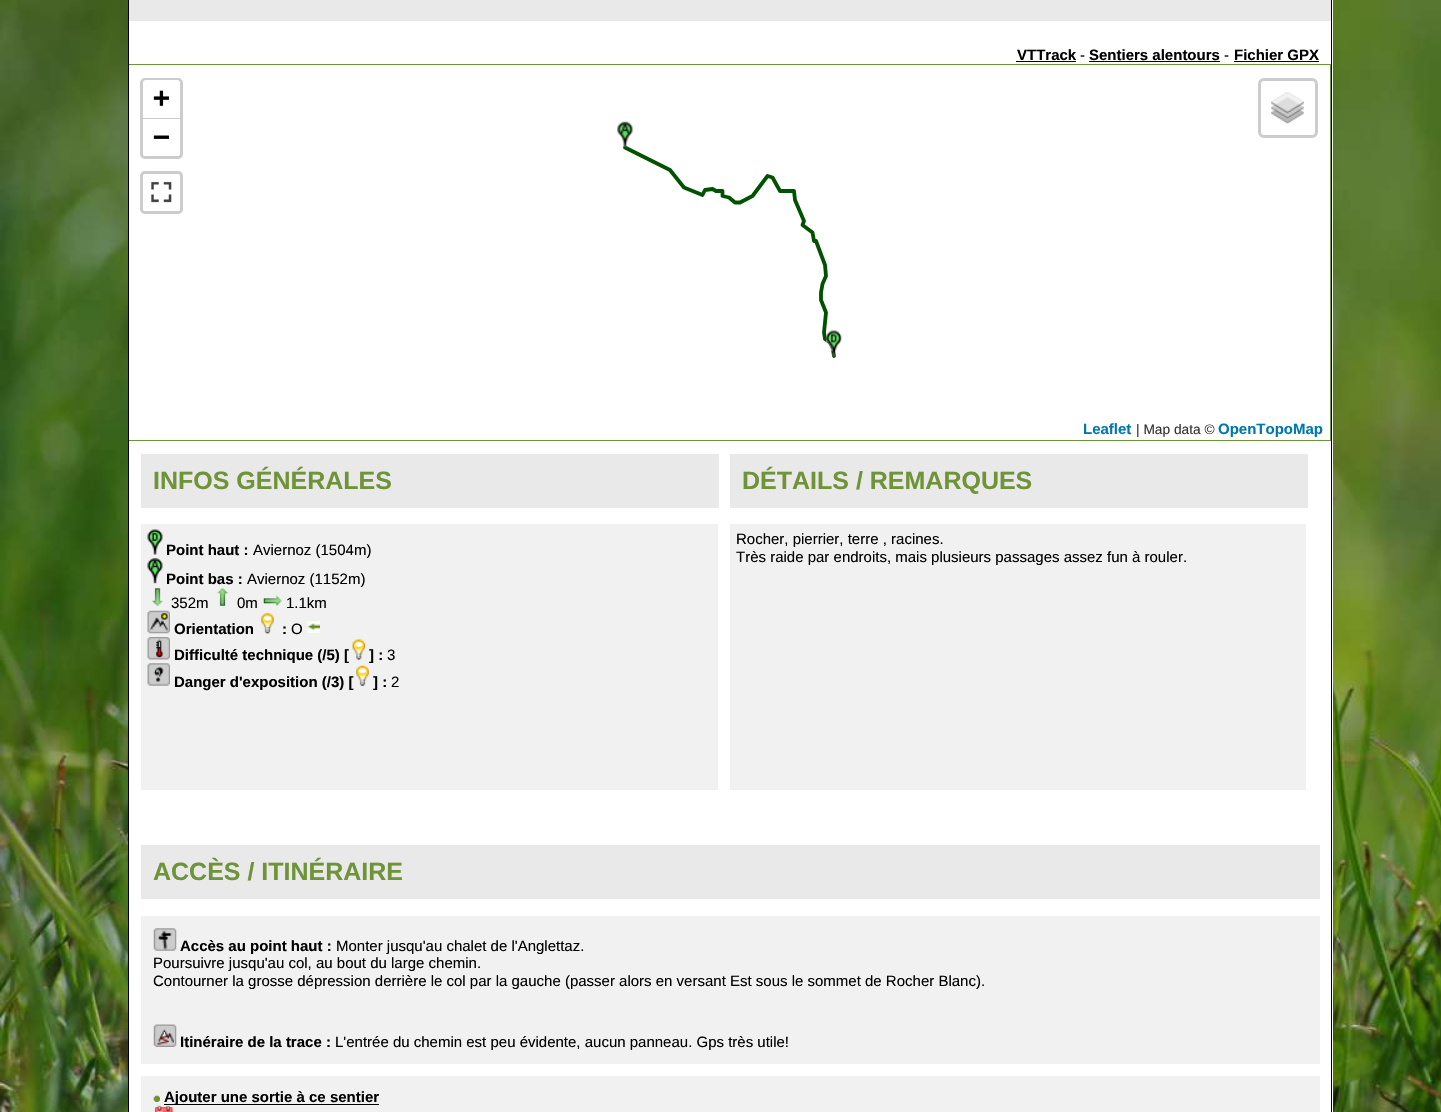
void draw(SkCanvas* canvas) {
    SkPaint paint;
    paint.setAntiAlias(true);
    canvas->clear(0xFFFFFFFF);
    canvas->drawImageRect(SkImages::DeferredFromEncodedData(SkData::MakeFromFileName("img1.png")), SkRect::MakeXYWH(0, 0, 1441, 1112), SkSamplingOptions());
    paint.setColor(0xFFFFFFFF);
    canvas->drawRect(SkRect::MakeXYWH(129, 0, 1204, 1112), paint);
    paint.setColor(0xFF000000);
    canvas->drawRect(SkRect::MakeXYWH(1331, 0, 1, 1112), paint);
    canvas->drawRect(SkRect::MakeXYWH(128, 0, 1, 1112), paint);
    paint.setColor(0xFFE9E9E9);
    canvas->drawRect(SkRect::MakeXYWH(129, 0, 1202, 21), paint);
    SkFont font1(fontMgr->matchFamilyStyle("Liberation Sans", SkFontStyle::Bold()), 15);
    font1.setSubpixel(true);
    paint.setColor(0xFF000000);
    canvas->drawString("VTTrack", 1017, 60, font1, paint);
    canvas->drawRect(SkRect::MakeXYWH(1016, 61, 60, 1), paint);
    SkFont font2(fontMgr->matchFamilyStyle("Liberation Sans", SkFontStyle::Normal()), 15);
    font2.setSubpixel(true);
    canvas->drawString("-", 1080, 60, font2, paint);
    canvas->drawString("Sentiers alentours", 1089, 60, font1, paint);
    canvas->drawRect(SkRect::MakeXYWH(1089, 61, 131, 1), paint);
    canvas->drawString("-", 1224, 60, font2, paint);
    canvas->drawString("Fichier GPX", 1234, 60, font1, paint);
    canvas->drawRect(SkRect::MakeXYWH(1234, 61, 85, 1), paint);
    canvas->save();
    canvas->clipRect(SkRect::MakeXYWH(129, 0, 1202, 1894));
    paint.setStyle(SkPaint::kStroke_Style);
    paint.setStrokeWidth(1);
    paint.setColor(0xFF6F9339);
    canvas->drawRect(SkRect::MakeXYWH(126.5f, 64.5f, 1204, 376), paint);
    canvas->restore();
    paint.setStrokeWidth(3);
    paint.setColor(0xFFCCCCCC);
    canvas->drawRoundRect(SkRect::MakeXYWH(141.5f, 79.5f, 40, 78), 3.5f, 3.5f, paint);
    paint.setStyle(SkPaint::kFill_Style);
    paint.setColor(0xFFFFFFFF);
    canvas->drawPath(SkPathBuilder().moveTo(145.5f, 80).lineTo(177.5f, 80).cubicTo(179, 80, 180, 81, 180, 82.5f).lineTo(180, 119).lineTo(143, 119).lineTo(143, 82.5f).cubicTo(143, 81, 144, 80, 145.5f, 80).close().detach(), paint);
    paint.setColor(0xFFCCCCCC);
    canvas->drawRect(SkRect::MakeXYWH(143, 118, 37, 1), paint);
    SkFont font3(fontMgr->matchFamilyStyle("DejaVu Sans Mono", SkFontStyle::Bold()), 28);
    font3.setSubpixel(true);
    paint.setColor(0xFF000000);
    canvas->drawString("+", 153, 107, font3, paint);
    paint.setColor(0xFFFFFFFF);
    canvas->drawPath(SkPathBuilder().moveTo(143, 119).lineTo(180, 119).lineTo(180, 153.5f).cubicTo(180, 155, 179, 156, 177.5f, 156).lineTo(145.5f, 156).cubicTo(144, 156, 143, 155, 143, 153.5f).close().detach(), paint);
    paint.setColor(0xFF000000);
    canvas->drawString("−", 153, 146, font3, paint);
    paint.setStyle(SkPaint::kStroke_Style);
    paint.setColor(0xFFCCCCCC);
    canvas->drawRoundRect(SkRect::MakeXYWH(141.5f, 172.5f, 40, 40), 3.5f, 3.5f, paint);
    paint.setStyle(SkPaint::kFill_Style);
    paint.setColor(0xFFFFFFFF);
    canvas->drawRoundRect(SkRect::MakeXYWH(143, 174, 37, 37), 2.5f, 2.5f, paint);
    canvas->drawImageRect(SkImages::DeferredFromEncodedData(SkData::MakeFromFileName("img2.png")), SkRect::MakeXYWH(151, 181, 21, 22), SkSamplingOptions());
    paint.setStyle(SkPaint::kStroke_Style);
    paint.setColor(0xFFCCCCCC);
    canvas->drawRoundRect(SkRect::MakeXYWH(1259.5f, 79.5f, 57, 57), 4.5f, 4.5f, paint);
    canvas->drawImageRect(SkImages::DeferredFromEncodedData(SkData::MakeFromFileName("img3.png")), SkRect::MakeXYWH(1271, 92, 33, 32), SkSamplingOptions());
    paint.setStyle(SkPaint::kFill_Style);
    paint.setColor(0xFF0078A8);
    canvas->drawString("Leaflet", 1083, 434, font1, paint);
    SkFont font4(fontMgr->matchFamilyStyle("Liberation Sans", SkFontStyle::Normal()), 13.75f);
    font4.setSubpixel(true);
    paint.setColor(0xFF333333);
    canvas->drawString("| Map data ©", 1136, 434, font4, paint);
    paint.setColor(0xFF0078A8);
    canvas->drawString("OpenTopoMap", 1218, 434, font1, paint);
    paint.setStyle(SkPaint::kStroke_Style);
    paint.setStrokeWidth(3.8f);
    paint.setStrokeCap(SkPaint::kRound_Cap);
    paint.setStrokeJoin(SkPaint::kRound_Join);
    paint.setColor(0xFF005100);
    canvas->drawPath(SkPathBuilder().moveTo(834, 356).lineTo(832.5f, 347.5f).lineTo(830, 342.5f).lineTo(825, 339).lineTo(824, 332.5f).lineTo(826, 312.5f).lineTo(821, 300).lineTo(821, 292.5f).lineTo(822.5f, 284).lineTo(826, 276).lineTo(825, 265).lineTo(816, 241).lineTo(814, 241).lineTo(812.5f, 232.5f).lineTo(802.5f, 225).lineTo(804, 221).lineTo(795, 200).lineTo(794, 191).lineTo(780, 191).lineTo(772.5f, 177.5f).lineTo(767.5f, 176).lineTo(752.5f, 196).lineTo(740, 202.5f).lineTo(735, 202.5f).lineTo(729, 197.5f).lineTo(722.5f, 196).lineTo(722.5f, 191).lineTo(716, 191).lineTo(712.5f, 189).lineTo(705, 190).lineTo(702.5f, 195).lineTo(684, 187.5f).lineTo(670, 170).lineTo(625, 147.5f).detach(), paint);
    canvas->drawImageRect(SkImages::DeferredFromEncodedData(SkData::MakeFromFileName("img4.png")), SkRect::MakeXYWH(617, 121, 17, 27), SkSamplingOptions());
    canvas->drawImageRect(SkImages::DeferredFromEncodedData(SkData::MakeFromFileName("img5.png")), SkRect::MakeXYWH(826, 330, 16, 27), SkSamplingOptions());
    paint.setStyle(SkPaint::kFill_Style);
    paint.setColor(0xFFE9E9E9);
    canvas->drawRect(SkRect::MakeXYWH(141, 454, 578, 54), paint);
    SkFont font5(fontMgr->matchFamilyStyle("Liberation Sans", SkFontStyle::Bold()), 25);
    font5.setSubpixel(true);
    paint.setColor(0xFF6F9339);
    canvas->drawString("INFOS GÉNÉRALES", 153, 489, font5, paint);
    paint.setColor(0xFFF1F1F1);
    canvas->drawRect(SkRect::MakeXYWH(141, 524, 577, 266), paint);
    canvas->drawImageRect(SkImages::DeferredFromEncodedData(SkData::MakeFromFileName("img6.png")), SkRect::MakeXYWH(147, 529, 16, 26), SkSamplingOptions());
    paint.setColor(0xFF000000);
    canvas->drawString("Point haut :", 166, 555, font1, paint);
    canvas->drawString("Aviernoz (1504m)", 253, 555, font2, paint);
    canvas->drawImageRect(SkImages::DeferredFromEncodedData(SkData::MakeFromFileName("img7.png")), SkRect::MakeXYWH(147, 558, 16, 26), SkSamplingOptions());
    canvas->drawString("Point bas :", 166, 584, font1, paint);
    canvas->drawString("Aviernoz (1152m)", 247, 584, font2, paint);
    canvas->drawImageRect(SkImages::DeferredFromEncodedData(SkData::MakeFromFileName("img8.png")), SkRect::MakeXYWH(152, 588, 11, 18), SkSamplingOptions());
    canvas->drawString("352m", 171, 608, font2, paint);
    canvas->drawImageRect(SkImages::DeferredFromEncodedData(SkData::MakeFromFileName("img9.png")), SkRect::MakeXYWH(217, 588, 11, 18), SkSamplingOptions());
    canvas->drawString("0m", 237, 608, font2, paint);
    canvas->drawImageRect(SkImages::DeferredFromEncodedData(SkData::MakeFromFileName("img10.png")), SkRect::MakeXYWH(263, 595, 19, 11), SkSamplingOptions());
    canvas->drawString("1.1km", 286, 608, font2, paint);
    canvas->drawImageRect(SkImages::DeferredFromEncodedData(SkData::MakeFromFileName("img11.png")), SkRect::MakeXYWH(147, 610, 23, 24), SkSamplingOptions());
    canvas->drawString("Orientation", 174, 634, font1, paint);
    canvas->drawImageRect(SkImages::DeferredFromEncodedData(SkData::MakeFromFileName("img12.png")), SkRect::MakeXYWH(261, 613, 13, 21), SkSamplingOptions());
    canvas->drawString(":", 282, 634, font1, paint);
    canvas->drawString("O", 291, 634, font2, paint);
    canvas->drawImageRect(SkImages::DeferredFromEncodedData(SkData::MakeFromFileName("img13.png")), SkRect::MakeXYWH(307, 621, 13, 12), SkSamplingOptions());
    canvas->drawImageRect(SkImages::DeferredFromEncodedData(SkData::MakeFromFileName("img14.png")), SkRect::MakeXYWH(147, 637, 23, 23), SkSamplingOptions());
    canvas->drawString("Difficulté technique (/5) [", 174, 660, font1, paint);
    canvas->drawImageRect(SkImages::DeferredFromEncodedData(SkData::MakeFromFileName("img15.png")), SkRect::MakeXYWH(352, 639, 14, 21), SkSamplingOptions());
    canvas->drawString("] :", 369, 660, font1, paint);
    canvas->drawString("3", 387, 660, font2, paint);
    canvas->drawImageRect(SkImages::DeferredFromEncodedData(SkData::MakeFromFileName("img16.png")), SkRect::MakeXYWH(147, 663, 23, 23), SkSamplingOptions());
    canvas->drawString("Danger d'exposition (/3) [", 174, 687, font1, paint);
    canvas->drawImageRect(SkImages::DeferredFromEncodedData(SkData::MakeFromFileName("img17.png")), SkRect::MakeXYWH(356, 665, 13, 21), SkSamplingOptions());
    canvas->drawString("] :", 373, 687, font1, paint);
    canvas->drawString("2", 391, 687, font2, paint);
    paint.setColor(0xFFE9E9E9);
    canvas->drawRect(SkRect::MakeXYWH(730, 454, 578, 54), paint);
    paint.setColor(0xFF6F9339);
    canvas->drawString("DÉTAILS / REMARQUES", 742, 489, font5, paint);
    paint.setColor(0xFFF1F1F1);
    canvas->drawRect(SkRect::MakeXYWH(730, 524, 576, 266), paint);
    paint.setColor(0xFF000000);
    canvas->drawString("Rocher, pierrier, terre , racines.", 736, 544, font2, paint);
    canvas->drawString("Très raide par endroits, mais plusieurs passages assez fun à rouler.", 736, 562, font2, paint);
    paint.setColor(0xFFE9E9E9);
    canvas->drawRect(SkRect::MakeXYWH(141, 845, 1179, 54), paint);
    paint.setColor(0xFF6F9339);
    canvas->drawString("ACCÈS / ITINÉRAIRE", 153, 880, font5, paint);
    paint.setColor(0xFFF1F1F1);
    canvas->drawRect(SkRect::MakeXYWH(141, 916, 1179, 148), paint);
    canvas->drawImageRect(SkImages::DeferredFromEncodedData(SkData::MakeFromFileName("img18.png")), SkRect::MakeXYWH(153, 928, 24, 23), SkSamplingOptions());
    paint.setColor(0xFF000000);
    canvas->drawString("Accès au point haut :", 180, 951, font1, paint);
    canvas->drawString("Monter jusqu'au chalet de l'Anglettaz.", 336, 951, font2, paint);
    canvas->drawString("Poursuivre jusqu'au col, au bout du large chemin.", 153, 968, font2, paint);
    canvas->drawString("Contourner la grosse dépression derrière le col par la gauche (passer alors en versant Est sous le sommet de Rocher Blanc).", 153, 986, font2, paint);
    canvas->drawImageRect(SkImages::DeferredFromEncodedData(SkData::MakeFromFileName("img19.png")), SkRect::MakeXYWH(153, 1024, 24, 23), SkSamplingOptions());
    canvas->drawString("Itinéraire de la trace :", 180, 1047, font1, paint);
    canvas->drawString("L'entrée du chemin est peu évidente, aucun panneau. Gps très utile!", 335, 1047, font2, paint);
    paint.setColor(0xFFF1F1F1);
    canvas->drawRect(SkRect::MakeXYWH(141, 1076, 1179, 36), paint);
    canvas->drawImageRect(SkImages::DeferredFromEncodedData(SkData::MakeFromFileName("img20.png")), SkRect::MakeXYWH(153, 1095, 7, 7), SkSamplingOptions());
    paint.setColor(0xFF000000);
    canvas->drawRect(SkRect::MakeXYWH(164, 1104, 215, 1), paint);
    canvas->drawString("Ajouter une sortie à ce sentier", 164, 1102, font1, paint);
    canvas->drawImageRect(SkImages::DeferredFromEncodedData(SkData::MakeFromFileName("img21.png")), SkRect::MakeXYWH(154, 1105, 19, 7), SkSamplingOptions());
}
